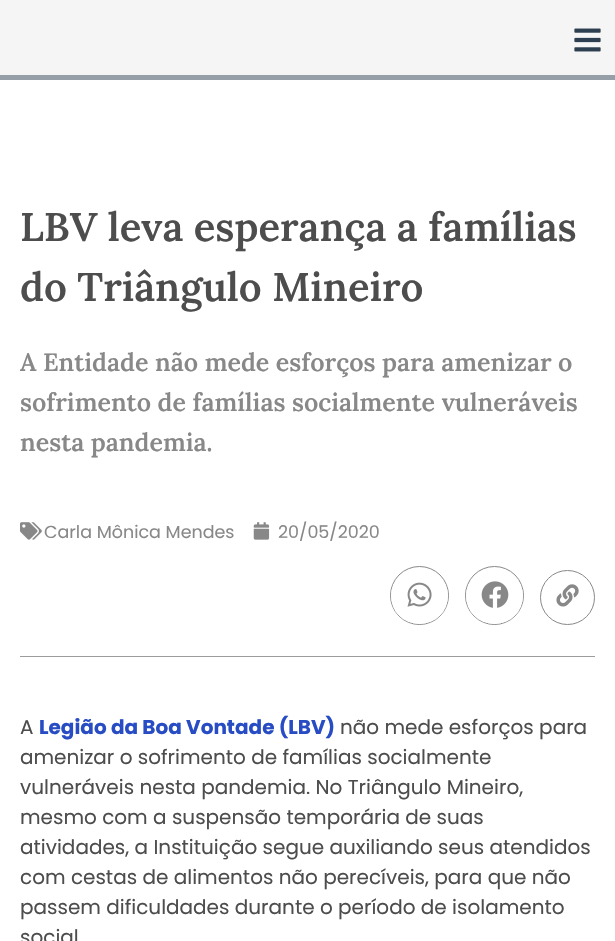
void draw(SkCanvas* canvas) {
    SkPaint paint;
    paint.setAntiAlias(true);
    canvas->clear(0xFFFFFFFF);
    paint.setColor(0xFFF5F5F5);
    canvas->drawRect(SkRect::MakeXYWH(0, 0, 615, 75), paint);
    canvas->drawImageRect(SkImages::DeferredFromEncodedData(SkData::MakeFromFileName("img1.png")), SkRect::MakeXYWH(574, 28, 27, 24), SkSamplingOptions());
    paint.setColor(0xFF969FA7);
    canvas->drawRect(SkRect::MakeXYWH(0, 75, 615, 5), paint);
    SkFont font1(fontMgr->matchFamilyStyle("Lora", SkFontStyle(600, SkFontStyle::kNormal_Width, SkFontStyle::kUpright_Slant)), 40);
    font1.setSubpixel(true);
    paint.setColor(0xFF4D4D4D);
    canvas->drawString("LBV leva esperança a famílias", 20, 241, font1, paint);
    canvas->drawString("do Triângulo Mineiro", 20, 301, font1, paint);
    SkFont font2(fontMgr->matchFamilyStyle("Lora", SkFontStyle(600, SkFontStyle::kNormal_Width, SkFontStyle::kUpright_Slant)), 25);
    font2.setSubpixel(true);
    paint.setColor(0xFF888888);
    canvas->drawString("A Entidade não mede esforços para amenizar o", 20, 371, font2, paint);
    canvas->drawString("sofrimento de famílias socialmente vulneráveis", 20, 411, font2, paint);
    canvas->drawString("nesta pandemia.", 20, 451, font2, paint);
    canvas->drawImageRect(SkImages::DeferredFromEncodedData(SkData::MakeFromFileName("img2.png")), SkRect::MakeXYWH(20, 522, 22, 18), SkSamplingOptions());
    SkFont font3(fontMgr->matchFamilyStyle("Poppins", SkFontStyle::Normal()), 17.5f);
    font3.setSubpixel(true);
    canvas->drawString("Carla Mônica Mendes", 44, 538, font3, paint);
    canvas->drawImageRect(SkImages::DeferredFromEncodedData(SkData::MakeFromFileName("img3.png")), SkRect::MakeXYWH(253, 522, 17, 18), SkSamplingOptions());
    canvas->drawString("20/05/2020", 278, 538, font3, paint);
    paint.setStyle(SkPaint::kStroke_Style);
    paint.setStrokeWidth(1);
    canvas->drawCircle(419.5f, 595.5f, 29, paint);
    paint.setStyle(SkPaint::kFill_Style);
    paint.setColor(0xFFFFFFFF);
    canvas->drawRoundRect(SkRect::MakeXYWH(391, 568, 57, 56), 28, 28, paint);
    canvas->drawImageRect(SkImages::DeferredFromEncodedData(SkData::MakeFromFileName("img4.png")), SkRect::MakeXYWH(407, 582, 25, 25), SkSamplingOptions());
    paint.setStyle(SkPaint::kStroke_Style);
    paint.setColor(0xFF888888);
    canvas->drawCircle(494.5f, 595.5f, 29, paint);
    paint.setStyle(SkPaint::kFill_Style);
    paint.setColor(0xFFFFFFFF);
    canvas->drawRoundRect(SkRect::MakeXYWH(466, 568, 57, 56), 28, 28, paint);
    canvas->drawImageRect(SkImages::DeferredFromEncodedData(SkData::MakeFromFileName("img5.png")), SkRect::MakeXYWH(481, 581, 28, 27), SkSamplingOptions());
    paint.setStyle(SkPaint::kStroke_Style);
    paint.setColor(0xFF888888);
    canvas->drawCircle(567.5f, 597.5f, 27, paint);
    canvas->drawImageRect(SkImages::DeferredFromEncodedData(SkData::MakeFromFileName("img6.png")), SkRect::MakeXYWH(556, 584, 23, 23), SkSamplingOptions());
    paint.setStyle(SkPaint::kFill_Style);
    paint.setColor(0xFF9C9C9C);
    canvas->drawRect(SkRect::MakeXYWH(20, 656, 575, 1), paint);
    SkFont font4(fontMgr->matchFamilyStyle("Poppins", SkFontStyle::Normal()), 20);
    font4.setSubpixel(true);
    paint.setColor(0xFF4D4D4D);
    canvas->drawString("A", 20, 734, font4, paint);
    SkFont font5(fontMgr->matchFamilyStyle("Poppins", SkFontStyle::Bold()), 20);
    font5.setSubpixel(true);
    paint.setColor(0xFF274CC4);
    canvas->drawString("Legião da Boa Vontade (LBV)", 39, 734, font5, paint);
    paint.setColor(0xFF4D4D4D);
    canvas->drawString("não mede esforços para", 340, 734, font4, paint);
    canvas->drawString("amenizar o sofrimento de famílias socialmente", 20, 764, font4, paint);
    canvas->drawString("vulneráveis nesta pandemia. No Triângulo Mineiro,", 20, 794, font4, paint);
    canvas->drawString("mesmo com a suspensão temporária de suas", 20, 824, font4, paint);
    canvas->drawString("atividades, a Instituição segue auxiliando seus atendidos", 20, 854, font4, paint);
    canvas->drawString("com cestas de alimentos não perecíveis, para que não", 20, 884, font4, paint);
    canvas->drawString("passem dificuldades durante o período de isolamento", 20, 914, font4, paint);
    canvas->drawString("social", 20, 944, font4, paint);
}
